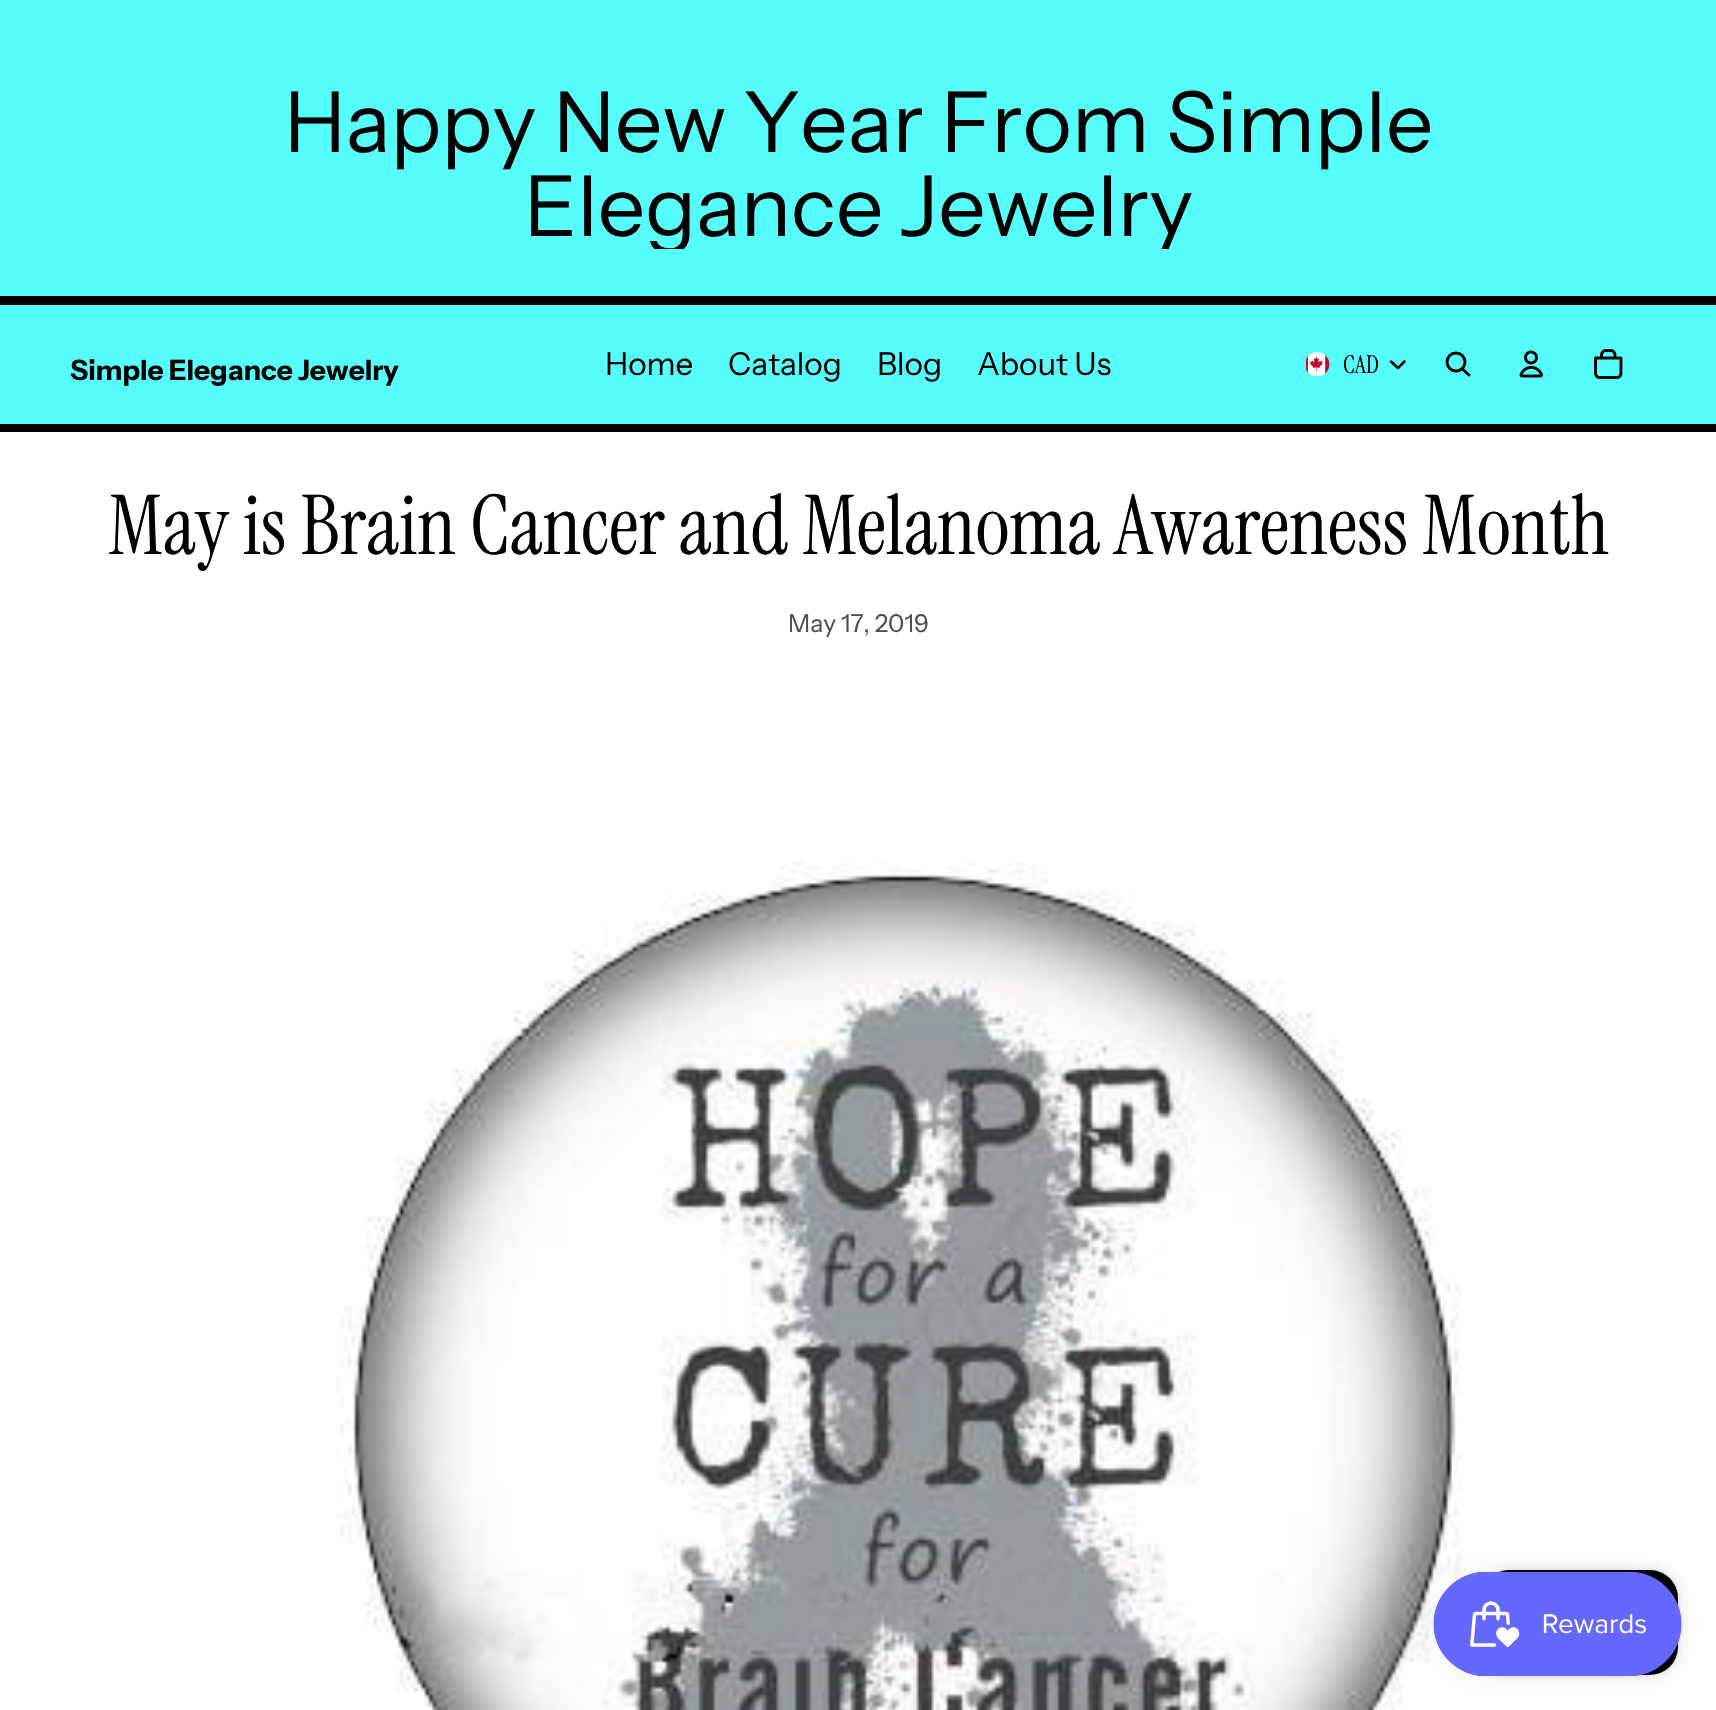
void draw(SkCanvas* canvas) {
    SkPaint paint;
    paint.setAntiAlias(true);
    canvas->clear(0xFFFFFFFF);
    paint.setColor(0xFF56FDFB);
    canvas->drawRect(SkRect::MakeXYWH(0, 0, 1716, 296), paint);
    paint.setColor(0xFF000000);
    canvas->drawRect(SkRect::MakeXYWH(0, 296, 1716, 9), paint);
    SkFont font1(fontMgr->matchFamilyStyle("Instrument Sans", SkFontStyle::Normal()), 84);
    font1.setSubpixel(true);
    canvas->drawString("Happy New Year From Simple", 284, 152, font1, paint);
    canvas->save();
    canvas->clipRect(SkRect::MakeXYWH(264, 81, 1190, 168));
    canvas->drawString("Elegance Jewelry", 524, 236, font1, paint);
    canvas->restore();
    paint.setColor(0xFF56FDFB);
    canvas->drawRect(SkRect::MakeXYWH(0, 305, 1716, 119), paint);
    paint.setColor(0xFF000000);
    canvas->drawRect(SkRect::MakeXYWH(0, 424, 1716, 8), paint);
    SkFont font2(fontMgr->matchFamilyStyle("Instrument Sans", SkFontStyle::Bold()), 28);
    font2.setSubpixel(true);
    canvas->drawString("Simple Elegance Jewelry", 70, 380, font2, paint);
    SkFont font3(fontMgr->matchFamilyStyle("Instrument Sans", SkFontStyle::Normal()), 31.5f);
    font3.setSubpixel(true);
    canvas->drawString("Home", 605, 375, font3, paint);
    canvas->drawString("Catalog", 728, 375, font3, paint);
    canvas->drawString("Blog", 877, 375, font3, paint);
    canvas->drawString("About Us", 977, 375, font3, paint);
    canvas->drawImageRect(SkImages::DeferredFromEncodedData(SkData::MakeFromFileName("img1.png")), SkRect::MakeXYWH(1306, 352, 24, 24), SkSamplingOptions());
    SkFont font4(fontMgr->matchFamilyStyle("Instrument Serif", SkFontStyle::Normal()), 24.5f);
    font4.setSubpixel(true);
    canvas->drawString("CAD", 1343, 373, font4, paint);
    paint.setStyle(SkPaint::kStroke_Style);
    paint.setStrokeWidth(2.5f);
    paint.setStrokeCap(SkPaint::kRound_Cap);
    paint.setStrokeJoin(SkPaint::kRound_Join);
    canvas->drawPath(SkPathBuilder().moveTo(1404.5f, 361.5f).lineTo(1398, 368).lineTo(1391, 361.5f).detach(), paint);
    paint.setStrokeWidth(2.9f);
    paint.setStrokeCap(SkPaint::kButt_Cap);
    paint.setStrokeJoin(SkPaint::kMiter_Join);
    canvas->drawCircle(1456, 362, 9, paint);
    paint.setStrokeCap(SkPaint::kRound_Cap);
    paint.setStrokeJoin(SkPaint::kRound_Join);
    canvas->drawPath(SkPathBuilder().moveTo(1462.5f, 369).lineTo(1469, 375).detach(), paint);
    canvas->drawImageRect(SkImages::DeferredFromEncodedData(SkData::MakeFromFileName("img2.png")), SkRect::MakeXYWH(1519, 350, 24, 28), SkSamplingOptions());
    canvas->drawImageRect(SkImages::DeferredFromEncodedData(SkData::MakeFromFileName("img3.png")), SkRect::MakeXYWH(1594, 349, 29, 30), SkSamplingOptions());
    SkFont font5(fontMgr->matchFamilyStyle("Instrument Serif", SkFontStyle::Normal()), 82.4f);
    font5.setSubpixel(true);
    paint.setStyle(SkPaint::kFill_Style);
    canvas->drawString("May is Brain Cancer and Melanoma Awareness Month", 108, 554, font5, paint);
    SkFont font6(fontMgr->matchFamilyStyle("Instrument Sans", SkFontStyle::Normal()), 24.5f);
    font6.setSubpixel(true);
    paint.setColor(0xFF4D4D4D);
    canvas->drawString("May 17, 2019", 788, 632, font6, paint);
    canvas->drawImageRect(SkImages::DeferredFromEncodedData(SkData::MakeFromFileName("img4.png")), SkRect::MakeXYWH(336, 861, 1126, 849), SkSamplingOptions());
    paint.setColor(0x26000000);
    paint.setMaskFilter(SkMaskFilter::MakeBlur(kNormal_SkBlurStyle, 4.5f));
    canvas->drawRoundRect(SkRect::MakeXYWH(1481, 1570, 197, 105), 28, 28, paint);
    paint.setMaskFilter(nullptr);
    paint.setColor(0xFF000000);
    canvas->drawRoundRect(SkRect::MakeXYWH(1481, 1570, 197, 105), 28, 28, paint);
    paint.setColor(0x0D000000);
    paint.setMaskFilter(SkMaskFilter::MakeBlur(kNormal_SkBlurStyle, 22));
    canvas->drawRoundRect(SkRect::MakeXYWH(1433, 1572, 249, 105), 52.5f, 52.5f, paint);
    paint.setMaskFilter(nullptr);
    canvas->drawImageRect(SkImages::DeferredFromEncodedData(SkData::MakeFromFileName("img5.png")), SkRect::MakeXYWH(1433, 1571, 249, 106), SkSamplingOptions());
}
